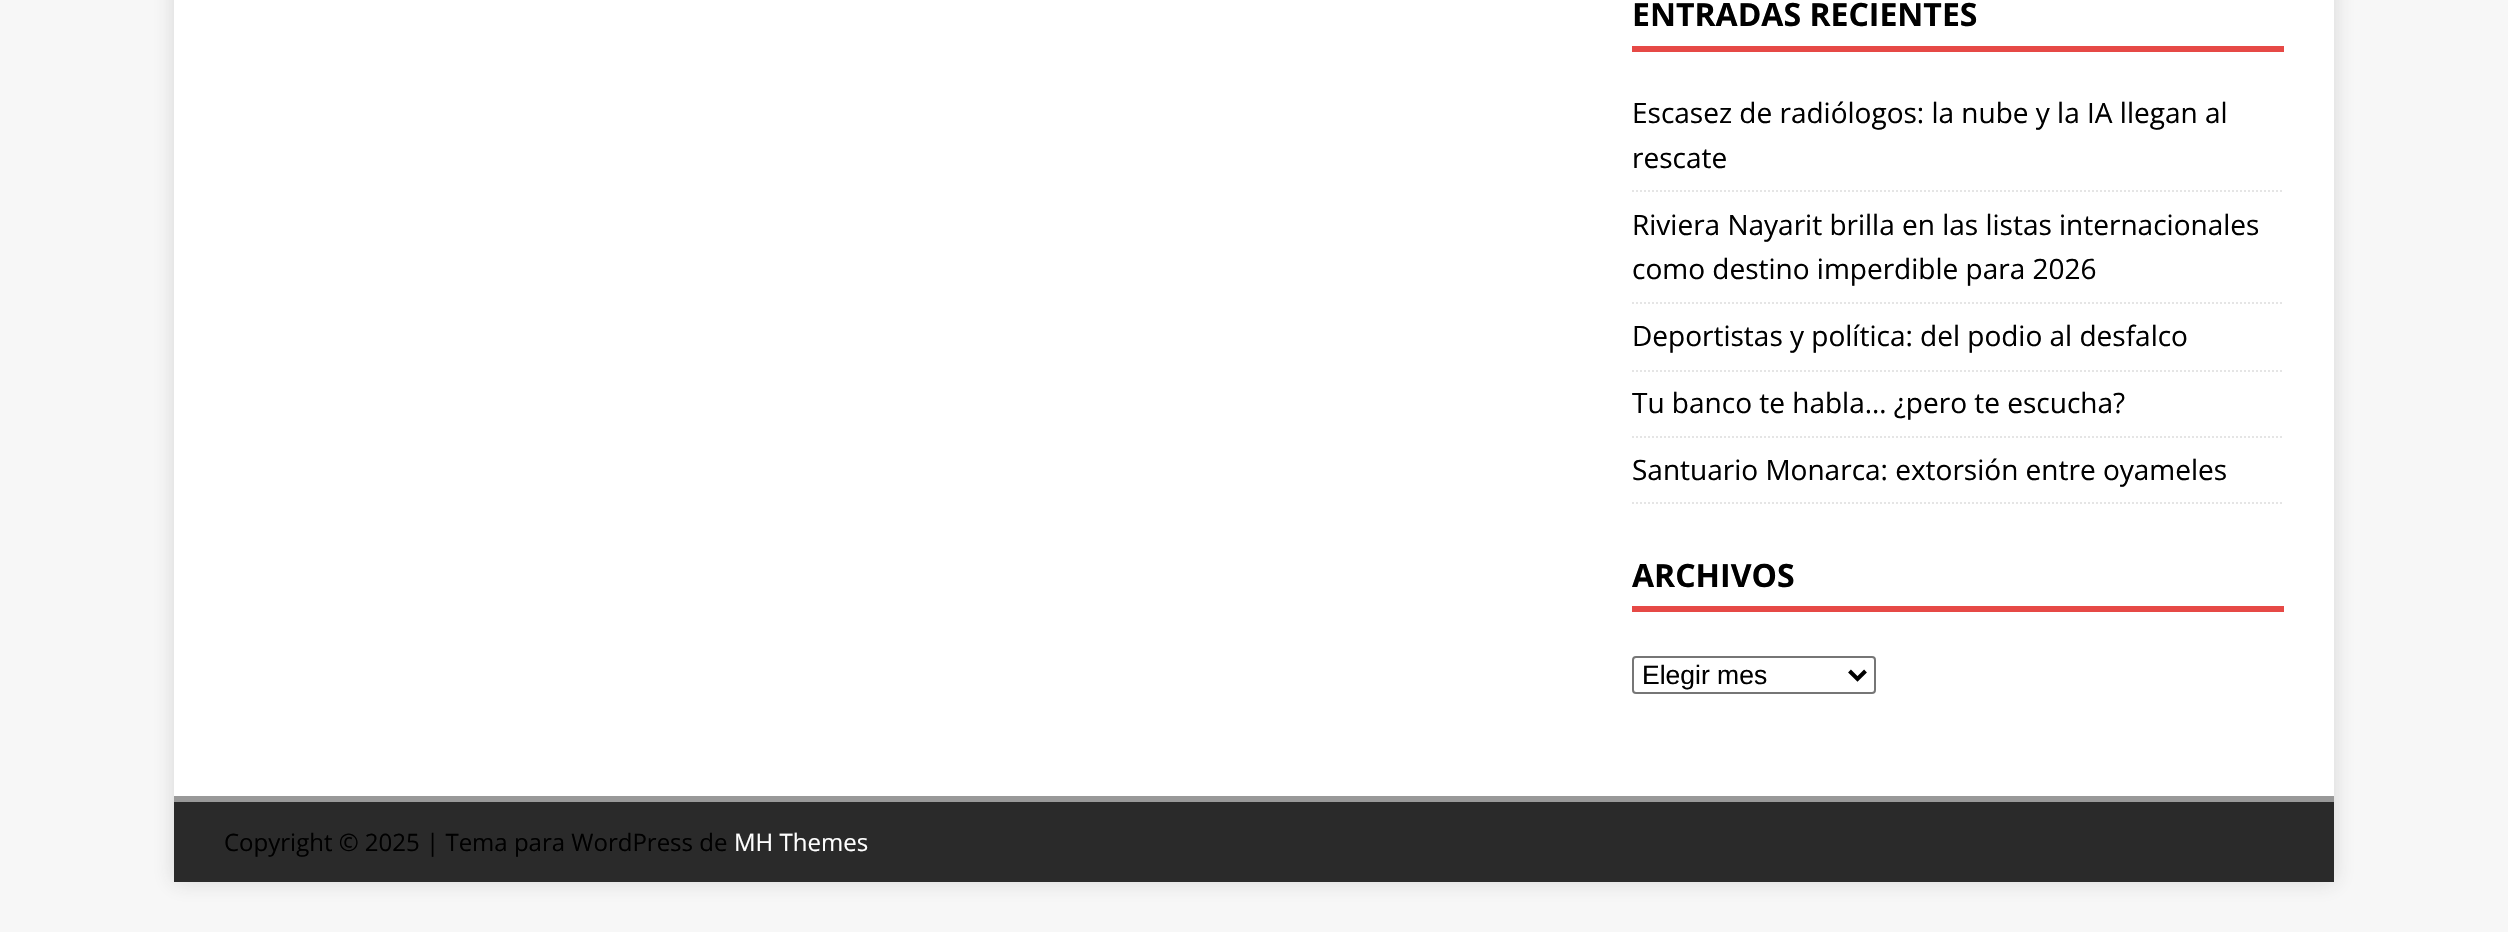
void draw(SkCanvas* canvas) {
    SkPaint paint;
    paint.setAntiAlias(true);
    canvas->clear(0xFFF7F7F7);
    paint.setColor(0x2B323232);
    paint.setMaskFilter(SkMaskFilter::MakeBlur(kNormal_SkBlurStyle, 10));
    canvas->drawRect(SkRect::MakeXYWH(174, -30, 2160, 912), paint);
    paint.setMaskFilter(nullptr);
    paint.setColor(0xFFFFFFFF);
    canvas->drawRect(SkRect::MakeXYWH(174, 0, 2160, 796), paint);
    paint.setColor(0xFFE64946);
    canvas->drawRect(SkRect::MakeXYWH(1632, 46, 652, 6), paint);
    SkFont font1(fontMgr->matchFamilyStyle("Open Sans", SkFontStyle::Bold()), 32);
    font1.setSubpixel(true);
    paint.setColor(0xFF000000);
    canvas->drawString("ENTRADAS RECIENTES", 1632, 26, font1, paint);
    paint.setStyle(SkPaint::kStroke_Style);
    paint.setStrokeWidth(2);
    paint.setColor(0xFFE5E5E5);
    paint.setPathEffect(SkDashPathEffect::Make({{2, 2}}, 0));
    canvas->drawPath(SkPathBuilder().moveTo(1632, 191).lineTo(2284, 191).detach(), paint);
    paint.setPathEffect(nullptr);
    SkFont font2(fontMgr->matchFamilyStyle("Open Sans", SkFontStyle::Normal()), 28);
    font2.setSubpixel(true);
    paint.setStyle(SkPaint::kFill_Style);
    paint.setColor(0xFF000000);
    canvas->drawString("Escasez de radiólogos: la nube y la IA llegan al", 1632, 123, font2, paint);
    canvas->drawString("rescate", 1632, 168, font2, paint);
    paint.setStyle(SkPaint::kStroke_Style);
    paint.setColor(0xFFE5E5E5);
    paint.setPathEffect(SkDashPathEffect::Make({{2, 2}}, 0));
    canvas->drawPath(SkPathBuilder().moveTo(1632, 303).lineTo(2284, 303).detach(), paint);
    paint.setPathEffect(nullptr);
    paint.setStyle(SkPaint::kFill_Style);
    paint.setColor(0xFF000000);
    canvas->drawString("Riviera Nayarit brilla en las listas internacionales", 1632, 235, font2, paint);
    canvas->drawString("como destino imperdible para 2026", 1632, 279, font2, paint);
    paint.setStyle(SkPaint::kStroke_Style);
    paint.setColor(0xFFE5E5E5);
    paint.setPathEffect(SkDashPathEffect::Make({{2, 2}}, 0));
    canvas->drawPath(SkPathBuilder().moveTo(1632, 371).lineTo(2284, 371).detach(), paint);
    paint.setPathEffect(nullptr);
    paint.setStyle(SkPaint::kFill_Style);
    paint.setColor(0xFF000000);
    canvas->drawString("Deportistas y política: del podio al desfalco", 1632, 346, font2, paint);
    paint.setStyle(SkPaint::kStroke_Style);
    paint.setColor(0xFFE5E5E5);
    paint.setPathEffect(SkDashPathEffect::Make({{2, 2}}, 0));
    canvas->drawPath(SkPathBuilder().moveTo(1632, 437).lineTo(2284, 437).detach(), paint);
    paint.setPathEffect(nullptr);
    paint.setStyle(SkPaint::kFill_Style);
    paint.setColor(0xFF000000);
    canvas->drawString("Tu banco te habla… ¿pero te escucha?", 1632, 413, font2, paint);
    paint.setStyle(SkPaint::kStroke_Style);
    paint.setColor(0xFFE5E5E5);
    paint.setPathEffect(SkDashPathEffect::Make({{2, 2}}, 0));
    canvas->drawPath(SkPathBuilder().moveTo(1632, 503).lineTo(2284, 503).detach(), paint);
    paint.setPathEffect(nullptr);
    paint.setStyle(SkPaint::kFill_Style);
    paint.setColor(0xFF000000);
    canvas->drawString("Santuario Monarca: extorsión entre oyameles", 1632, 480, font2, paint);
    paint.setColor(0xFFE64946);
    canvas->drawRect(SkRect::MakeXYWH(1632, 606, 652, 6), paint);
    paint.setColor(0xFF000000);
    canvas->drawString("ARCHIVOS", 1632, 587, font1, paint);
    paint.setStyle(SkPaint::kStroke_Style);
    paint.setColor(0xFF767676);
    canvas->drawRoundRect(SkRect::MakeXYWH(1633, 657, 242, 36), 3, 3, paint);
    paint.setStrokeWidth(4);
    paint.setColor(0xFF000000);
    canvas->drawPath(SkPathBuilder().moveTo(1849.5f, 671).lineTo(1857.5f, 679).lineTo(1865.5f, 671).detach(), paint);
    SkFont font3(fontMgr->matchFamilyStyle("Liberation Sans", SkFontStyle::Normal()), 26.5f);
    font3.setSubpixel(true);
    paint.setStyle(SkPaint::kFill_Style);
    canvas->drawString("Elegir mes", 1642, 684, font3, paint);
    paint.setColor(0xFF2A2A2A);
    canvas->drawRect(SkRect::MakeXYWH(174, 802, 2160, 80), paint);
    paint.setColor(0xFF999999);
    canvas->drawRect(SkRect::MakeXYWH(174, 796, 2160, 6), paint);
    SkFont font4(fontMgr->matchFamilyStyle("Open Sans", SkFontStyle::Normal()), 24);
    font4.setSubpixel(true);
    paint.setColor(0xFF000000);
    canvas->drawString("Copyright © 2025 | Tema para WordPress de", 224, 851, font4, paint);
    paint.setColor(0xFFFFFFFF);
    canvas->drawString("MH Themes", 734, 851, font4, paint);
}
